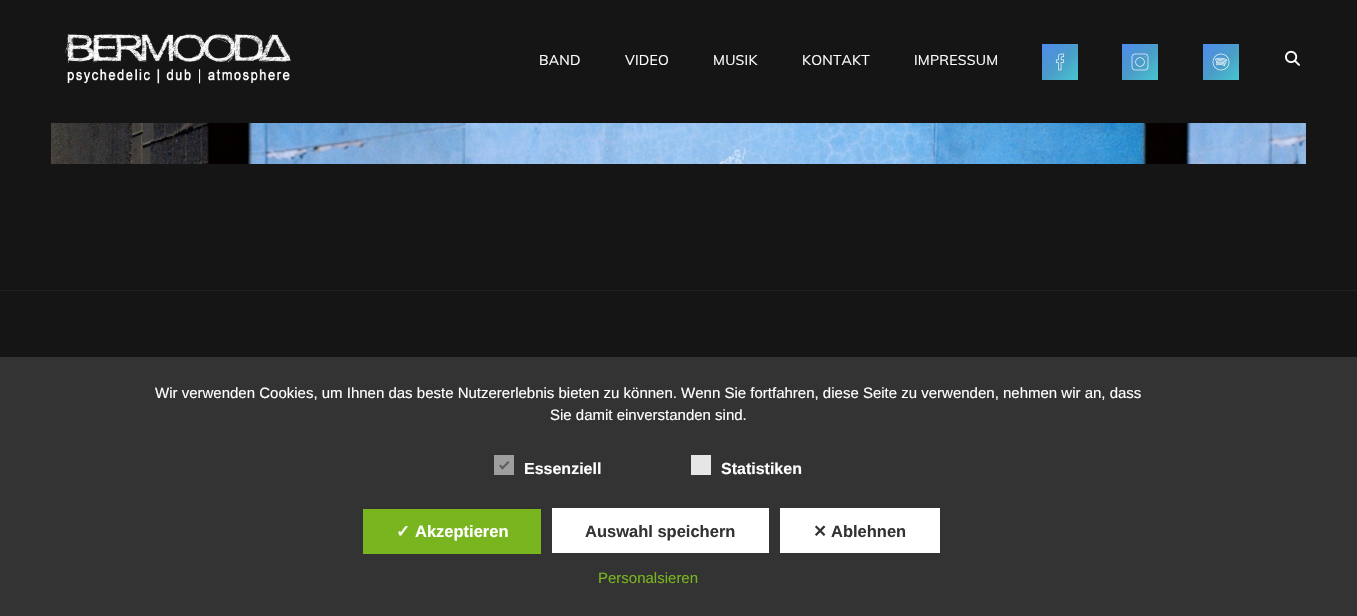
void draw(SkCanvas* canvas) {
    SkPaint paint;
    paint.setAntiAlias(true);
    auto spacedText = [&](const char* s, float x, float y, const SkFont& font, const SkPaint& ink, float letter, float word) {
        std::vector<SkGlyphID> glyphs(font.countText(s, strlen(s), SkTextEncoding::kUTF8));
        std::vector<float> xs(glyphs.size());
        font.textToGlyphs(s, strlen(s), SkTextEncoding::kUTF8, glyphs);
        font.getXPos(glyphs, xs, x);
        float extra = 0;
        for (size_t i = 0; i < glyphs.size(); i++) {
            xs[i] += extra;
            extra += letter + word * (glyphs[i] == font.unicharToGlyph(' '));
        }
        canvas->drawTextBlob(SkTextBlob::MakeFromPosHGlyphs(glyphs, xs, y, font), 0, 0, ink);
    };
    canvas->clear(0xFF151515);
    canvas->drawImageRect(SkImages::DeferredFromEncodedData(SkData::MakeFromFileName("img1.png")), SkRect::MakeXYWH(65, 34, 226, 50), SkSamplingOptions());
    SkFont font1(fontMgr->matchFamilyStyle("Muli", SkFontStyle::Normal()), 14);
    font1.setSubpixel(true);
    paint.setColor(0xFFFFFFFF);
    spacedText("BAND", 539, 65, font1, paint, 0.25f, 0);
    spacedText("VIDEO", 625, 65, font1, paint, 0.25f, 0);
    spacedText("MUSIK", 713, 65, font1, paint, 0.25f, 0);
    spacedText("KONTAKT", 802, 65, font1, paint, 0.25f, 0);
    spacedText("IMPRESSUM", 914, 65, font1, paint, 0.25f, 0);
    canvas->drawImageRect(SkImages::DeferredFromEncodedData(SkData::MakeFromFileName("img2.png")), SkRect::MakeXYWH(1042, 44, 36, 36), SkSamplingOptions());
    canvas->drawImageRect(SkImages::DeferredFromEncodedData(SkData::MakeFromFileName("img3.png")), SkRect::MakeXYWH(1122, 44, 36, 36), SkSamplingOptions());
    canvas->drawImageRect(SkImages::DeferredFromEncodedData(SkData::MakeFromFileName("img4.png")), SkRect::MakeXYWH(1203, 44, 36, 36), SkSamplingOptions());
    canvas->drawImageRect(SkImages::DeferredFromEncodedData(SkData::MakeFromFileName("img5.png")), SkRect::MakeXYWH(1285, 50, 15, 16), SkSamplingOptions());
    canvas->drawImageRect(SkImages::DeferredFromEncodedData(SkData::MakeFromFileName("img6.png")), SkRect::MakeXYWH(51, 123, 1255, 41), SkSamplingOptions());
    paint.setColor(0xFF222222);
    canvas->drawRect(SkRect::MakeXYWH(0, 290, 1357, 1), paint);
    paint.setColor(0xFF333333);
    canvas->drawRect(SkRect::MakeXYWH(0, 357, 1357, 259), paint);
    SkFont font2(fontMgr->matchFamilyStyle("Liberation Sans", SkFontStyle::Normal()), 15);
    font2.setSubpixel(true);
    paint.setColor(0xFFFFFFFF);
    canvas->drawString("Wir verwenden Cookies, um Ihnen das beste Nutzererlebnis bieten zu können. Wenn Sie fortfahren, diese Seite zu verwenden, nehmen wir an, dass", 155, 398, font2, paint);
    canvas->drawString("Sie damit einverstanden sind.", 550, 420, font2, paint);
    paint.setColor(0xFF9E9E9E);
    canvas->drawRect(SkRect::MakeXYWH(494, 455, 20, 20), paint);
    paint.setColor(0xFF5E5E5E);
    canvas->drawPath(SkPathBuilder().moveTo(508, 461).lineTo(509.5f, 462.5f).lineTo(502.5f, 469.5f).lineTo(501, 468).close().detach(), paint);
    canvas->drawPath(SkPathBuilder().moveTo(500.5f, 464.5f).lineTo(504, 468).lineTo(502.5f, 469.5f).lineTo(499, 466).close().detach(), paint);
    SkFont font3(fontMgr->matchFamilyStyle("Liberation Sans", SkFontStyle::Bold()), 16);
    font3.setSubpixel(true);
    paint.setColor(0xFFFFFFFF);
    canvas->drawString("Essenziell", 524, 474, font3, paint);
    paint.setColor(0xFFE6E6E6);
    canvas->drawRect(SkRect::MakeXYWH(691, 455, 20, 20), paint);
    paint.setColor(0xFFFFFFFF);
    canvas->drawString("Statistiken", 721, 474, font3, paint);
    paint.setColor(0xFF79B51F);
    canvas->drawRect(SkRect::MakeXYWH(363, 509, 178, 45), paint);
    SkFont font4(fontMgr->matchFamilyStyle("DejaVu Sans", SkFontStyle::Bold()), 16.5f);
    font4.setSubpixel(true);
    paint.setColor(0xFFFFFFFF);
    canvas->drawString("✓", 396, 537, font4, paint);
    SkFont font5(fontMgr->matchFamilyStyle("Liberation Sans", SkFontStyle::Bold()), 16.5f);
    font5.setSubpixel(true);
    canvas->drawString("Akzeptieren", 415, 537, font5, paint);
    canvas->drawRect(SkRect::MakeXYWH(552, 508, 217, 45), paint);
    paint.setColor(0xFF333333);
    canvas->drawString("Auswahl speichern", 585, 537, font5, paint);
    paint.setColor(0xFFFFFFFF);
    canvas->drawRect(SkRect::MakeXYWH(780, 508, 160, 45), paint);
    paint.setColor(0xFF333333);
    canvas->drawString("✕", 813, 537, font4, paint);
    canvas->drawString("Ablehnen", 831, 537, font5, paint);
    paint.setColor(0xFF79B51F);
    canvas->drawString("Personalsieren", 598, 583, font2, paint);
}
